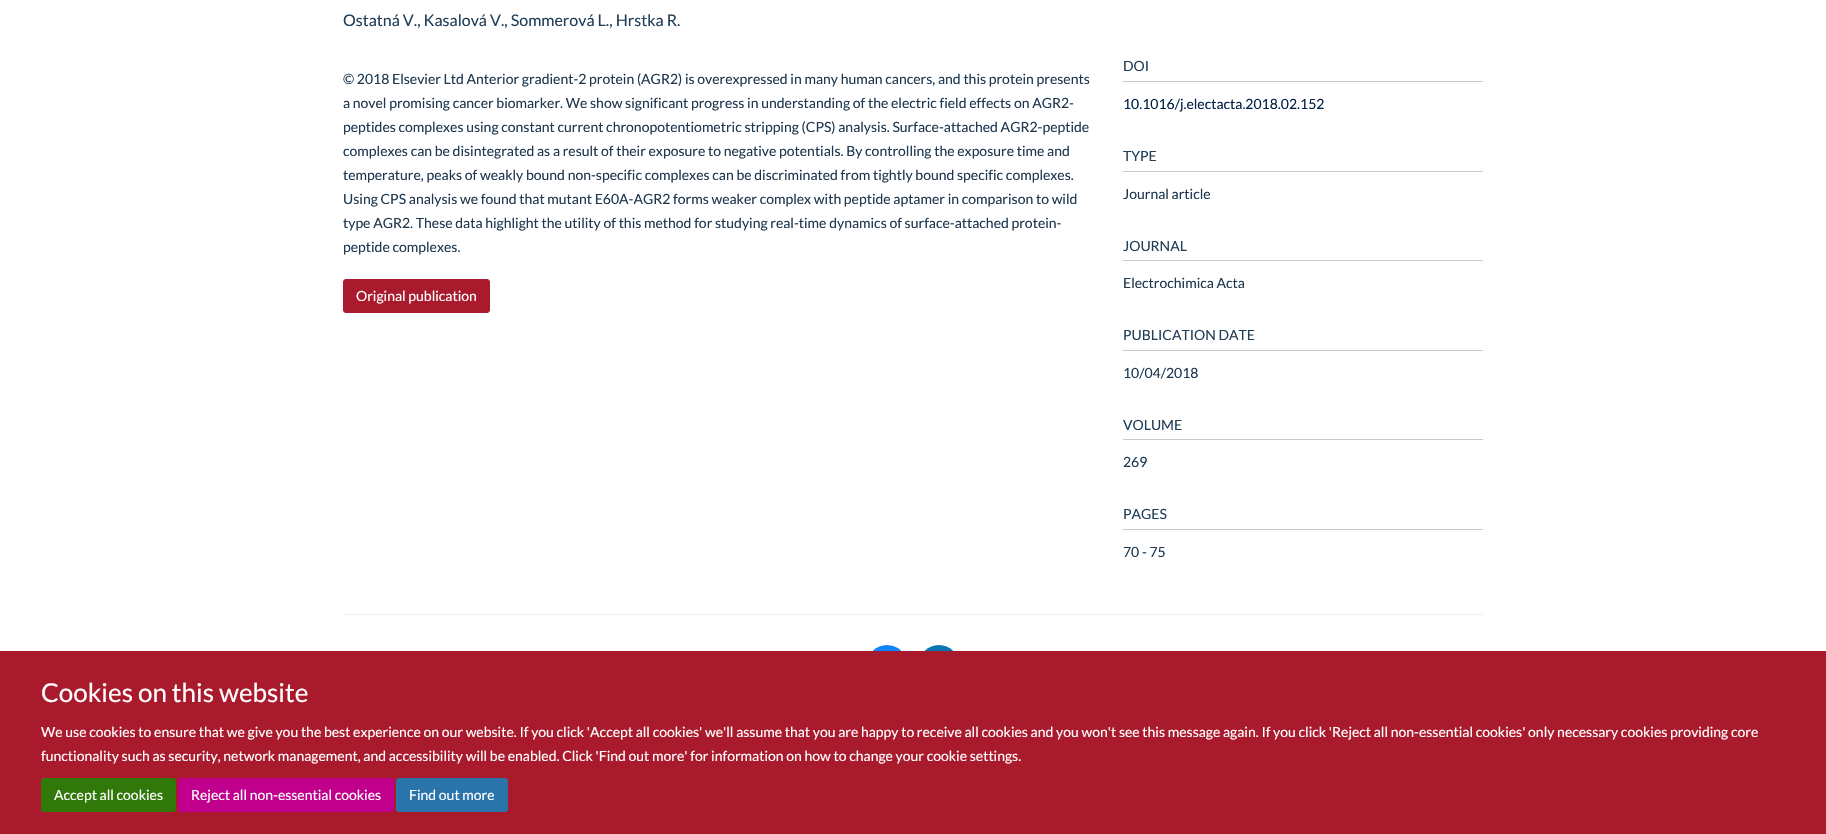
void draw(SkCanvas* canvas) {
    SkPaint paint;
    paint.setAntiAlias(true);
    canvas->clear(0xFFFFFFFF);
    SkFont font1(fontMgr->matchFamilyStyle("Lato", SkFontStyle::Normal()), 16);
    font1.setSubpixel(true);
    paint.setColor(0xFF203E58);
    canvas->drawString("Ostatná V., Kasalová V., Sommerová L., Hrstka R.", 343, 26, font1, paint);
    SkFont font2(fontMgr->matchFamilyStyle("Lato", SkFontStyle::Normal()), 14);
    font2.setSubpixel(true);
    paint.setColor(0xFF1D3850);
    canvas->drawString("© 2018 Elsevier Ltd Anterior gradient-2 protein (AGR2) is overexpressed in many human cancers, and this protein presents", 343, 84, font2, paint);
    canvas->drawString("a novel promising cancer biomarker. We show significant progress in understanding of the electric field effects on AGR2-", 343, 108, font2, paint);
    canvas->drawString("peptides complexes using constant current chronopotentiometric stripping (CPS) analysis. Surface-attached AGR2-peptide", 343, 132, font2, paint);
    canvas->drawString("complexes can be disintegrated as a result of their exposure to negative potentials. By controlling the exposure time and", 343, 156, font2, paint);
    canvas->drawString("temperature, peaks of weakly bound non-specific complexes can be discriminated from tightly bound specific complexes.", 343, 180, font2, paint);
    canvas->drawString("Using CPS analysis we found that mutant E60A-AGR2 forms weaker complex with peptide aptamer in comparison to wild", 343, 204, font2, paint);
    canvas->drawString("type AGR2. These data highlight the utility of this method for studying real-time dynamics of surface-attached protein-", 343, 228, font2, paint);
    canvas->drawString("peptide complexes.", 343, 252, font2, paint);
    paint.setColor(0xFFAA1A2D);
    canvas->drawRoundRect(SkRect::MakeXYWH(343.5f, 279.5f, 146, 33), 2.5f, 2.5f, paint);
    paint.setStyle(SkPaint::kStroke_Style);
    paint.setStrokeWidth(1);
    canvas->drawRoundRect(SkRect::MakeXYWH(343.5f, 279.5f, 146, 33), 2.5f, 2.5f, paint);
    paint.setStyle(SkPaint::kFill_Style);
    paint.setColor(0xFFFFFFFF);
    canvas->drawString("Original publication", 356, 301, font2, paint);
    paint.setColor(0xFFC6CACF);
    canvas->drawRect(SkRect::MakeXYWH(1123, 81, 360, 1), paint);
    paint.setColor(0xFF203E58);
    canvas->drawString("DOI", 1123, 71, font2, paint);
    paint.setColor(0xFF002147);
    canvas->drawString("10.1016/j.electacta.2018.02.152", 1123, 109, font2, paint);
    paint.setColor(0xFFC6CACF);
    canvas->drawRect(SkRect::MakeXYWH(1123, 171, 360, 1), paint);
    paint.setColor(0xFF203E58);
    canvas->drawString("TYPE", 1123, 161, font2, paint);
    paint.setColor(0xFF1D3850);
    canvas->drawString("Journal article", 1123, 199, font2, paint);
    paint.setColor(0xFFC6CACF);
    canvas->drawRect(SkRect::MakeXYWH(1123, 260, 360, 1), paint);
    paint.setColor(0xFF203E58);
    canvas->drawString("JOURNAL", 1123, 251, font2, paint);
    paint.setColor(0xFF1D3850);
    canvas->drawString("Electrochimica Acta", 1123, 288, font2, paint);
    paint.setColor(0xFFC6CACF);
    canvas->drawRect(SkRect::MakeXYWH(1123, 350, 360, 1), paint);
    paint.setColor(0xFF203E58);
    canvas->drawString("PUBLICATION DATE", 1123, 340, font2, paint);
    paint.setColor(0xFF1D3850);
    canvas->drawString("10/04/2018", 1123, 378, font2, paint);
    paint.setColor(0xFFC6CACF);
    canvas->drawRect(SkRect::MakeXYWH(1123, 439, 360, 1), paint);
    paint.setColor(0xFF203E58);
    canvas->drawString("VOLUME", 1123, 430, font2, paint);
    paint.setColor(0xFF1D3850);
    canvas->drawString("269", 1123, 467, font2, paint);
    paint.setColor(0xFFC6CACF);
    canvas->drawRect(SkRect::MakeXYWH(1123, 529, 360, 1), paint);
    paint.setColor(0xFF203E58);
    canvas->drawString("PAGES", 1123, 519, font2, paint);
    paint.setColor(0xFF1D3850);
    canvas->drawString("70 - 75", 1123, 557, font2, paint);
    paint.setColor(0xFFEEEEEE);
    canvas->drawRect(SkRect::MakeXYWH(343, 614, 1140, 1), paint);
    paint.setColor(0xFF1183FC);
    canvas->drawCircle(887, 665, 20, paint);
    paint.setColor(0xFF0976B4);
    canvas->drawCircle(939, 665, 20, paint);
    paint.setColor(0xFFAA1A2D);
    canvas->drawRect(SkRect::MakeXYWH(0, 651, 1826, 183), paint);
    SkFont font3(fontMgr->matchFamilyStyle("Lato", SkFontStyle::Normal()), 26);
    font3.setSubpixel(true);
    paint.setColor(0xFFFFFFFF);
    canvas->drawString("Cookies on this website", 41, 702, font3, paint);
    canvas->drawString("We use cookies to ensure that we give you the best experience on our website. If you click 'Accept all cookies' we'll assume that you are happy to receive all cookies and you won't see this message again. If you click 'Reject all non-essential cookies' only necessary cookies providing core", 41, 737, font2, paint);
    canvas->drawString("functionality such as security, network management, and accessibility will be enabled. Click 'Find out more' for information on how to change your cookie settings.", 41, 761, font2, paint);
    paint.setColor(0xFF31780A);
    canvas->drawRoundRect(SkRect::MakeXYWH(41.5f, 778.5f, 134, 33), 2.5f, 2.5f, paint);
    paint.setStyle(SkPaint::kStroke_Style);
    canvas->drawRoundRect(SkRect::MakeXYWH(41.5f, 778.5f, 134, 33), 2.5f, 2.5f, paint);
    paint.setStyle(SkPaint::kFill_Style);
    paint.setColor(0xFFFFFFFF);
    canvas->drawString("Accept all cookies", 54, 800, font2, paint);
    paint.setColor(0xFFC0008D);
    canvas->drawRoundRect(SkRect::MakeXYWH(178.5f, 778.5f, 215, 33), 2.5f, 2.5f, paint);
    paint.setStyle(SkPaint::kStroke_Style);
    canvas->drawRoundRect(SkRect::MakeXYWH(178.5f, 778.5f, 215, 33), 2.5f, 2.5f, paint);
    paint.setStyle(SkPaint::kFill_Style);
    paint.setColor(0xFFFFFFFF);
    canvas->drawString("Reject all non-essential cookies", 191, 800, font2, paint);
    paint.setColor(0xFF2A74AC);
    canvas->drawRoundRect(SkRect::MakeXYWH(396.5f, 778.5f, 111, 33), 2.5f, 2.5f, paint);
    paint.setStyle(SkPaint::kStroke_Style);
    canvas->drawRoundRect(SkRect::MakeXYWH(396.5f, 778.5f, 111, 33), 2.5f, 2.5f, paint);
    paint.setStyle(SkPaint::kFill_Style);
    paint.setColor(0xFFFFFFFF);
    canvas->drawString("Find out more", 409, 800, font2, paint);
}
